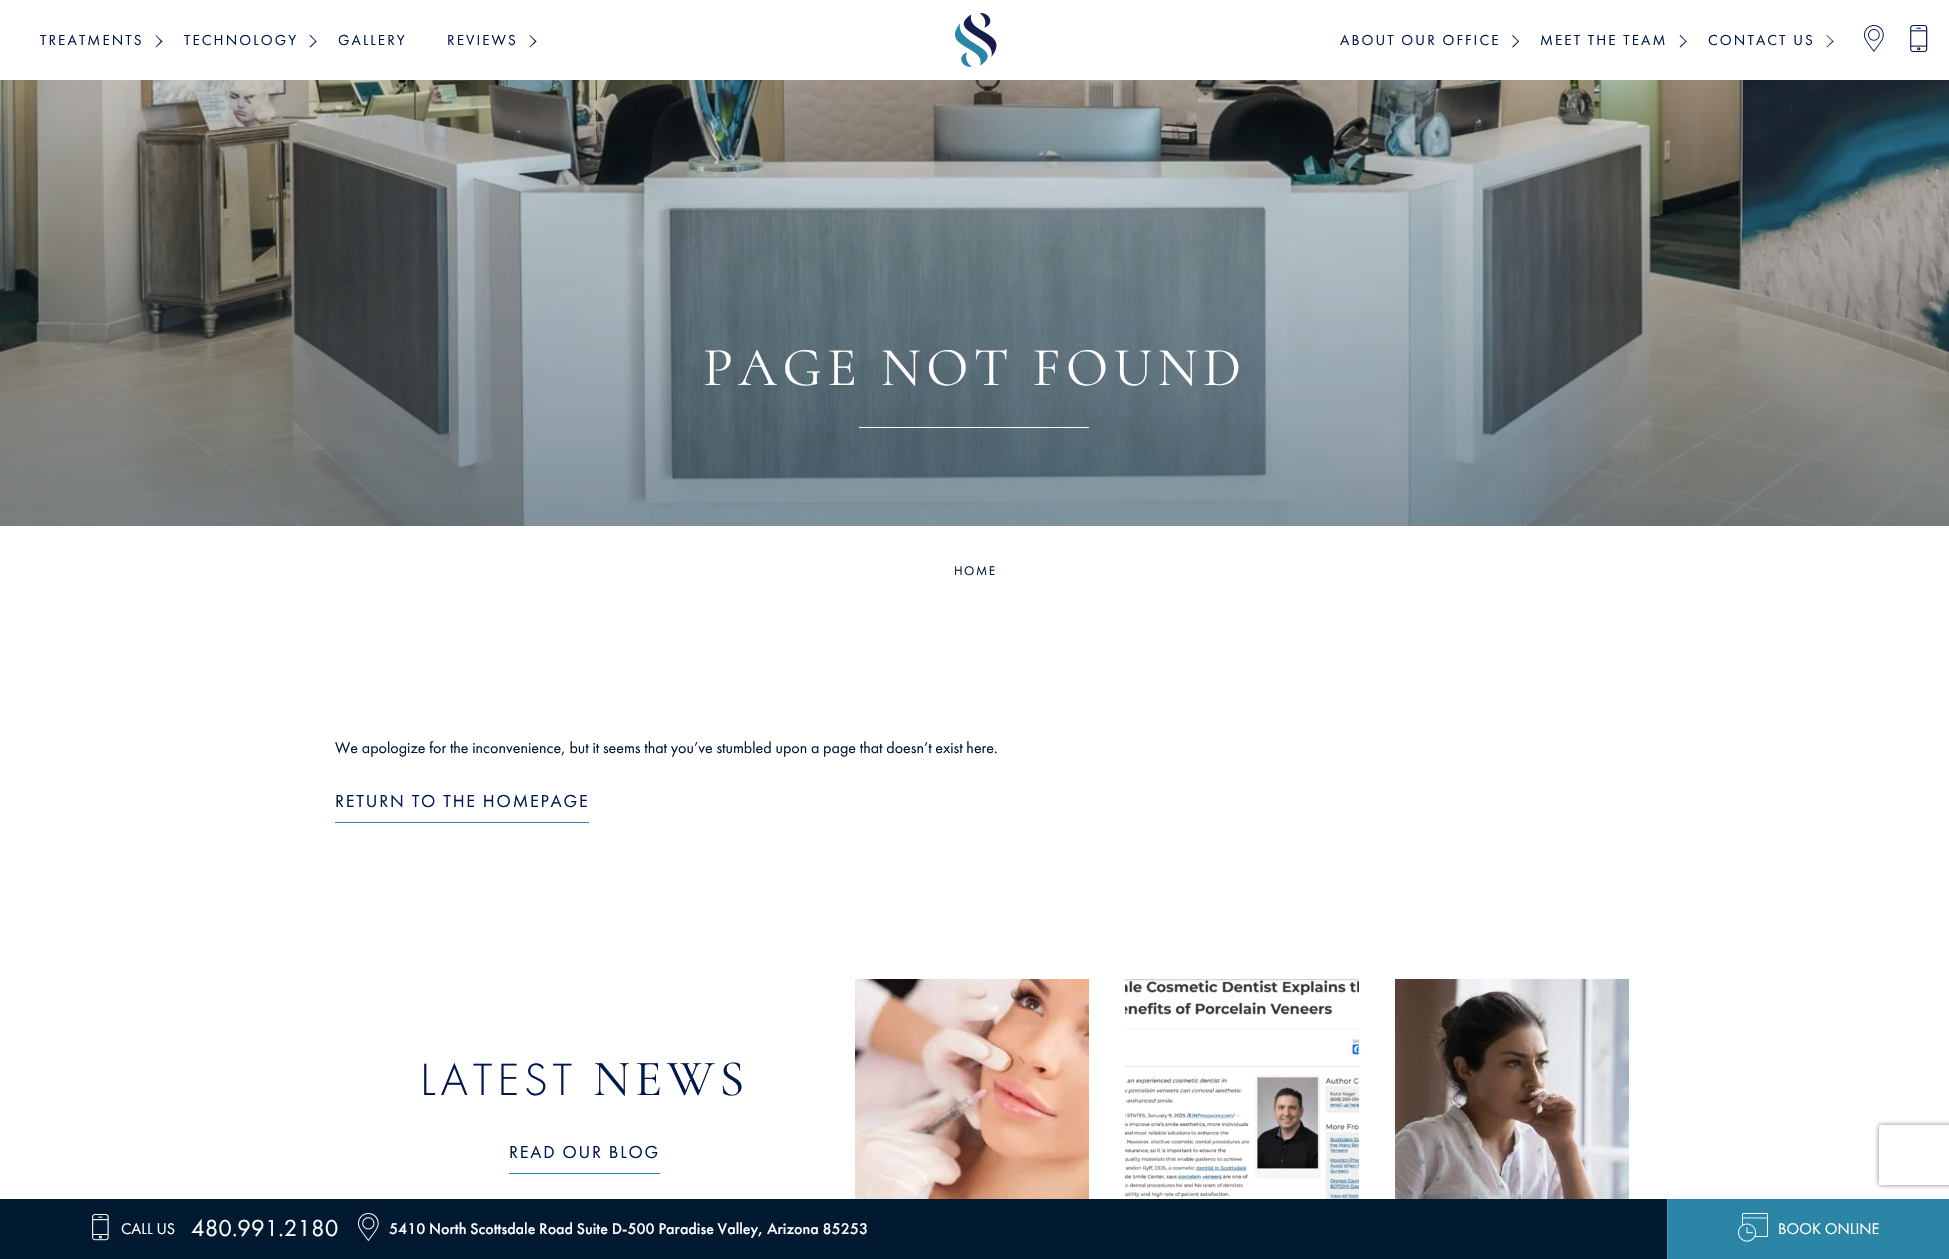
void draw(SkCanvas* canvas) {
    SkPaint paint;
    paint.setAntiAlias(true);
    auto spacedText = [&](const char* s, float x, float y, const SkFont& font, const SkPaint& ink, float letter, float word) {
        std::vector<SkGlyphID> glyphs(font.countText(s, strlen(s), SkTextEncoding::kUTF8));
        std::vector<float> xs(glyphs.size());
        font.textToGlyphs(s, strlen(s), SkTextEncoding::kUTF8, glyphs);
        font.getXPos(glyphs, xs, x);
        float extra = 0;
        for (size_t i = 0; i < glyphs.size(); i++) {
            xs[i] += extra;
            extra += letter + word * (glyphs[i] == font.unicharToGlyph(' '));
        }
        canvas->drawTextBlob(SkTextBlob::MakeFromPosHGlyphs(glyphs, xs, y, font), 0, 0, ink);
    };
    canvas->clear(0xFFFFFFFF);
    canvas->drawImageRect(SkImages::DeferredFromEncodedData(SkData::MakeFromFileName("img1.png")), SkRect::MakeXYWH(955, 13, 42, 54), SkSamplingOptions());
    canvas->drawImageRect(SkImages::DeferredFromEncodedData(SkData::MakeFromFileName("img2.png")), SkRect::MakeXYWH(1864, 25, 20, 27), SkSamplingOptions());
    canvas->drawImageRect(SkImages::DeferredFromEncodedData(SkData::MakeFromFileName("img3.png")), SkRect::MakeXYWH(1910, 25, 18, 27), SkSamplingOptions());
    SkFont font1(fontMgr->matchFamilyStyle("Futura PT", SkFontStyle::Normal()), 15);
    font1.setSubpixel(true);
    paint.setColor(0xFF01184E);
    spacedText("TREATMENTS", 40, 45, font1, paint, 2.1f, 0);
    canvas->drawPath(SkPathBuilder().moveTo(155.5f, 35.5f).lineTo(156, 35).lineTo(162.5f, 41.5f).lineTo(161.5f, 42).close().detach(), paint);
    canvas->drawPath(SkPathBuilder().moveTo(155.5f, 47).lineTo(161.5f, 40.5f).lineTo(162.5f, 41.5f).lineTo(156, 47.5f).close().detach(), paint);
    spacedText("TECHNOLOGY", 184, 45, font1, paint, 2.1f, 0);
    canvas->drawPath(SkPathBuilder().moveTo(309.5f, 35.5f).lineTo(310.5f, 35).lineTo(316.5f, 41.5f).lineTo(316, 42).close().detach(), paint);
    canvas->drawPath(SkPathBuilder().moveTo(309.5f, 47).lineTo(316, 40.5f).lineTo(316.5f, 41.5f).lineTo(310.5f, 47.5f).close().detach(), paint);
    spacedText("GALLERY", 338, 45, font1, paint, 2.1f, 0);
    spacedText("REVIEWS", 447, 45, font1, paint, 2.1f, 0);
    canvas->drawPath(SkPathBuilder().moveTo(529.5f, 35.5f).lineTo(530, 35).lineTo(536.5f, 41.5f).lineTo(535.5f, 42).close().detach(), paint);
    canvas->drawPath(SkPathBuilder().moveTo(529.5f, 47).lineTo(535.5f, 40.5f).lineTo(536.5f, 41.5f).lineTo(530, 47.5f).close().detach(), paint);
    spacedText("ABOUT OUR OFFICE", 1340, 45, font1, paint, 2.1f, 0);
    canvas->drawPath(SkPathBuilder().moveTo(1512, 35.5f).lineTo(1513, 35).lineTo(1519, 41.5f).lineTo(1518.5f, 42).close().detach(), paint);
    canvas->drawPath(SkPathBuilder().moveTo(1512, 47).lineTo(1518.5f, 40.5f).lineTo(1519, 41.5f).lineTo(1513, 47.5f).close().detach(), paint);
    spacedText("MEET THE TEAM", 1540, 45, font1, paint, 2.1f, 0);
    canvas->drawPath(SkPathBuilder().moveTo(1679.5f, 35.5f).lineTo(1680.5f, 35).lineTo(1686.5f, 41.5f).lineTo(1686, 42).close().detach(), paint);
    canvas->drawPath(SkPathBuilder().moveTo(1679.5f, 47).lineTo(1686, 40.5f).lineTo(1686.5f, 41.5f).lineTo(1680.5f, 47.5f).close().detach(), paint);
    spacedText("CONTACT US", 1708, 45, font1, paint, 2.1f, 0);
    canvas->drawPath(SkPathBuilder().moveTo(1826.5f, 35.5f).lineTo(1827, 35).lineTo(1833.5f, 41.5f).lineTo(1833, 42).close().detach(), paint);
    canvas->drawPath(SkPathBuilder().moveTo(1826.5f, 47).lineTo(1833, 40.5f).lineTo(1833.5f, 41.5f).lineTo(1827, 47.5f).close().detach(), paint);
    canvas->drawImageRect(SkImages::DeferredFromEncodedData(SkData::MakeFromFileName("img4.png")), SkRect::MakeXYWH(0, 80, 1949, 446), SkSamplingOptions());
    SkFont font2(fontMgr->matchFamilyStyle("Cormorant", SkFontStyle::Normal()), 55);
    font2.setSubpixel(true);
    paint.setColor(0xFFFFFFFF);
    spacedText("PAGE NOT FOUND", 703, 385, font2, paint, 5.5f, 0);
    canvas->drawRect(SkRect::MakeXYWH(859, 427, 230, 1), paint);
    SkFont font3(fontMgr->matchFamilyStyle("Futura PT", SkFontStyle::Normal()), 13);
    font3.setSubpixel(true);
    paint.setColor(0xFF011A31);
    spacedText("HOME", 954, 575, font3, paint, 1.5f, 0);
    SkFont font4(fontMgr->matchFamilyStyle("Futura PT", SkFontStyle::Normal()), 16);
    font4.setSubpixel(true);
    canvas->drawString("We apologize for the inconvenience, but it seems that you’ve stumbled upon a page that doesn’t exist here.", 335, 753, font4, paint);
    paint.setColor(0xFF2A85A6);
    canvas->drawRect(SkRect::MakeXYWH(335, 822, 254, 1), paint);
    SkFont font5(fontMgr->matchFamilyStyle("Futura PT", SkFontStyle::Normal()), 18);
    font5.setSubpixel(true);
    paint.setColor(0xFF01184E);
    spacedText("RETURN TO THE HOMEPAGE", 335, 807, font5, paint, 1.8f, 0);
    SkFont font6(fontMgr->matchFamilyStyle("Futura PT", SkFontStyle(300, SkFontStyle::kNormal_Width, SkFontStyle::kUpright_Slant)), 47);
    font6.setSubpixel(true);
    spacedText("LATEST", 420, 1095, font6, paint, 4.75f, 0);
    SkFont font7(fontMgr->matchFamilyStyle("Cormorant", SkFontStyle::Normal()), 51);
    font7.setSubpixel(true);
    spacedText("NEWS", 593, 1095, font7, paint, 4.75f, 0);
    paint.setColor(0xFF2A85A6);
    canvas->drawRect(SkRect::MakeXYWH(509, 1173, 151, 1), paint);
    paint.setColor(0xFF01184E);
    spacedText("READ OUR BLOG", 509, 1158, font5, paint, 1.8f, 0);
    canvas->drawImageRect(SkImages::DeferredFromEncodedData(SkData::MakeFromFileName("img5.png")), SkRect::MakeXYWH(855, 979, 234, 220), SkSamplingOptions());
    canvas->drawImageRect(SkImages::DeferredFromEncodedData(SkData::MakeFromFileName("img6.png")), SkRect::MakeXYWH(1125, 979, 234, 220), SkSamplingOptions());
    canvas->drawImageRect(SkImages::DeferredFromEncodedData(SkData::MakeFromFileName("img7.png")), SkRect::MakeXYWH(1395, 979, 234, 220), SkSamplingOptions());
    paint.setColor(0xFF011A31);
    canvas->drawRect(SkRect::MakeXYWH(0, 1199, 1667, 60), paint);
    canvas->drawImageRect(SkImages::DeferredFromEncodedData(SkData::MakeFromFileName("img8.png")), SkRect::MakeXYWH(92, 1214, 17, 27), SkSamplingOptions());
    paint.setColor(0xFFFFFFFF);
    canvas->drawString("CALL US", 121, 1234, font4, paint);
    SkFont font8(fontMgr->matchFamilyStyle("Futura PT", SkFontStyle::Normal()), 24);
    font8.setSubpixel(true);
    canvas->drawString("480.991.2180", 191, 1236, font8, paint);
    canvas->drawImageRect(SkImages::DeferredFromEncodedData(SkData::MakeFromFileName("img9.png")), SkRect::MakeXYWH(358, 1213, 21, 29), SkSamplingOptions());
    SkFont font9(fontMgr->matchFamilyStyle("Futura PT", SkFontStyle(500, SkFontStyle::kNormal_Width, SkFontStyle::kUpright_Slant)), 16);
    font9.setSubpixel(true);
    canvas->drawString("5410 North Scottsdale Road Suite D-500 Paradise Valley, Arizona 85253", 389, 1234, font9, paint);
    paint.setColor(0xFF2A85A6);
    canvas->drawRect(SkRect::MakeXYWH(1668, 1199, 281, 60), paint);
    paint.setColor(0xFF4695B2);
    canvas->drawRect(SkRect::MakeXYWH(1667, 1199, 1, 60), paint);
    canvas->drawImageRect(SkImages::DeferredFromEncodedData(SkData::MakeFromFileName("img10.png")), SkRect::MakeXYWH(1738, 1213, 30, 29), SkSamplingOptions());
    paint.setColor(0xFFFFFFFF);
    canvas->drawString("BOOK ONLINE", 1778, 1234, font4, paint);
    canvas->save();
    canvas->clipPath(SkPathBuilder(SkPathFillType::kEvenOdd).moveTo(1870, 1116).lineTo(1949, 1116).lineTo(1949, 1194).lineTo(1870, 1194).close().moveTo(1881, 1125).lineTo(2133, 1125).cubicTo(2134, 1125, 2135, 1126, 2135, 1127).lineTo(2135, 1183).cubicTo(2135, 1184, 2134, 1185, 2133, 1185).lineTo(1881, 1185).cubicTo(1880, 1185, 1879, 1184, 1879, 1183).lineTo(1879, 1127).cubicTo(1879, 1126, 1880, 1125, 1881, 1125).close().detach(), true);
    paint.setColor(0xFF808080);
    paint.setMaskFilter(SkMaskFilter::MakeBlur(kNormal_SkBlurStyle, 2.5f));
    canvas->drawRoundRect(SkRect::MakeXYWH(1879, 1125, 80, 60), 2, 2, paint);
    paint.setMaskFilter(nullptr);
    canvas->restore();
}
